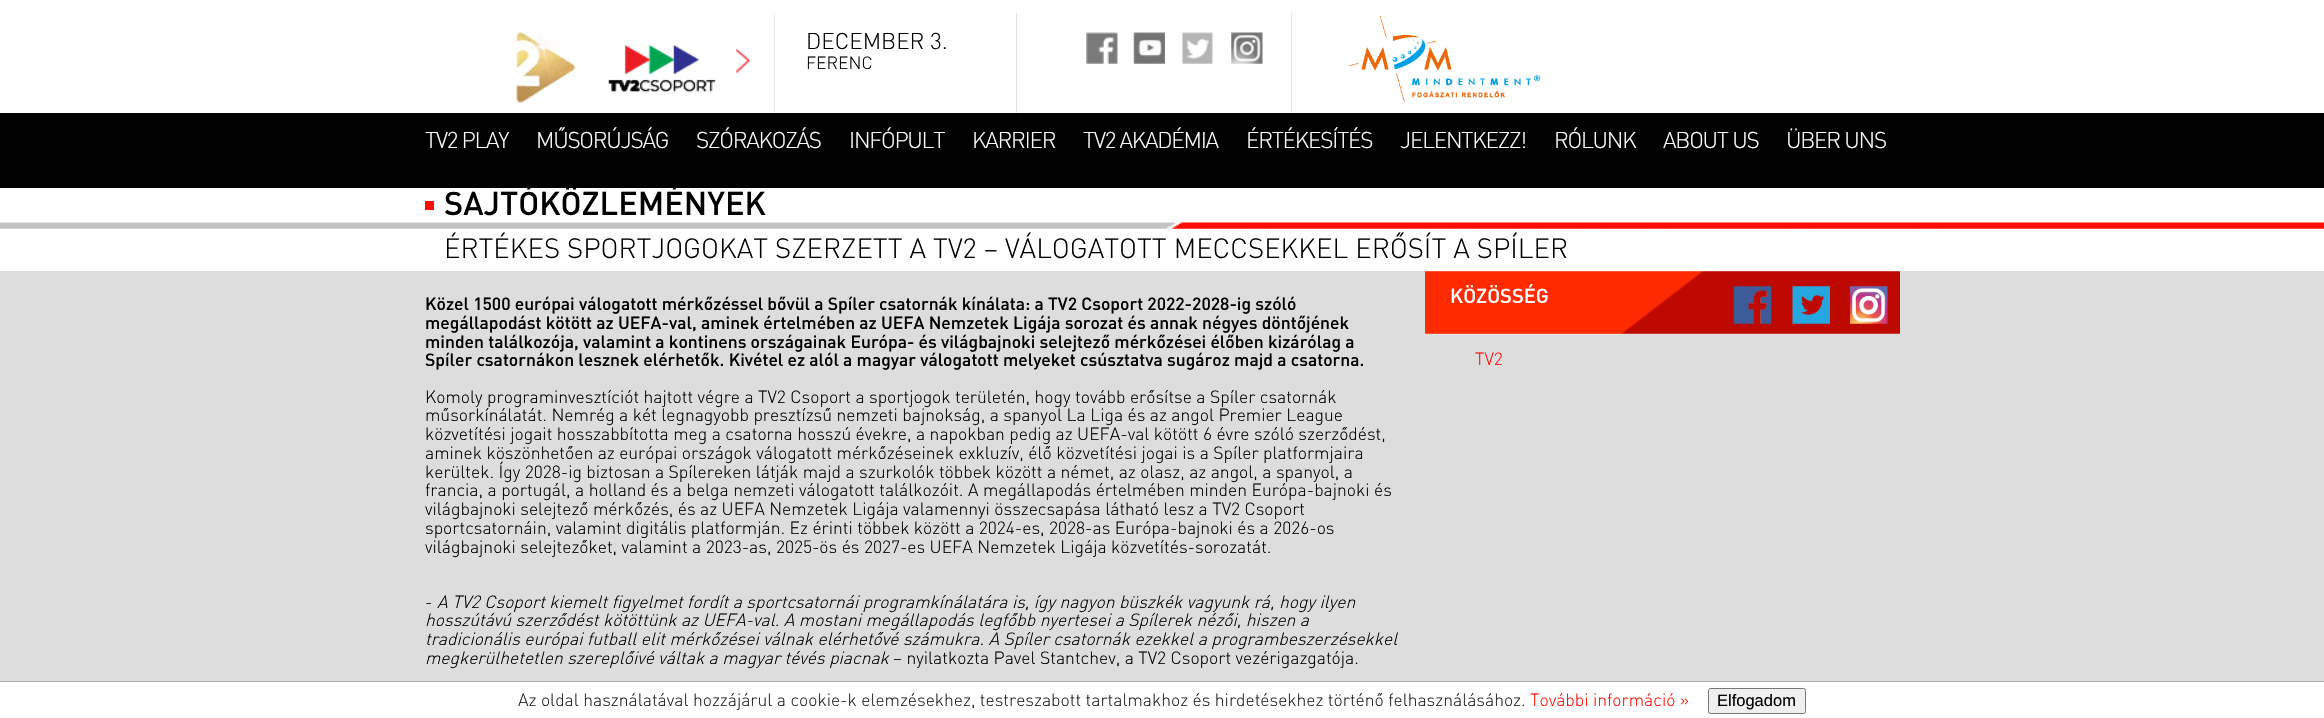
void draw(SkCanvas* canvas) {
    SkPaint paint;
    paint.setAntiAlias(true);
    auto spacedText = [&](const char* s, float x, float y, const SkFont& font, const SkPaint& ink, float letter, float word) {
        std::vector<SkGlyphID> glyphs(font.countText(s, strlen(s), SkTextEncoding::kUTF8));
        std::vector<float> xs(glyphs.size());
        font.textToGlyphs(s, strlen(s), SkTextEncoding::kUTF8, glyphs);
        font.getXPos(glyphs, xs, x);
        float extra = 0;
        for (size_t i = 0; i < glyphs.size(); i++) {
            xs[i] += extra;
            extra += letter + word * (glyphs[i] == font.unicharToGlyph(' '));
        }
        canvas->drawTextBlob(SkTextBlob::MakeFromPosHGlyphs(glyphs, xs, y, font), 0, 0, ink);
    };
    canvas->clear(0xFFFFFFFF);
    canvas->drawImageRect(SkImages::DeferredFromEncodedData(SkData::MakeFromFileName("img1.png")), SkRect::MakeXYWH(516, 32, 60, 71), SkSamplingOptions());
    canvas->drawImageRect(SkImages::DeferredFromEncodedData(SkData::MakeFromFileName("img2.png")), SkRect::MakeXYWH(608, 44, 108, 48), SkSamplingOptions());
    canvas->drawImageRect(SkImages::DeferredFromEncodedData(SkData::MakeFromFileName("img3.png")), SkRect::MakeXYWH(736, 48, 15, 26), SkSamplingOptions());
    paint.setColor(0xFFE5E5E5);
    canvas->drawRect(SkRect::MakeXYWH(774, 13, 1, 100), paint);
    SkFont font1(fontMgr->matchFamilyStyle("DIN", SkFontStyle(300, SkFontStyle::kNormal_Width, SkFontStyle::kUpright_Slant)), 22.5f);
    font1.setSubpixel(true);
    paint.setColor(0xFF000000);
    canvas->drawString("DECEMBER 3.", 806, 49, font1, paint);
    SkFont font2(fontMgr->matchFamilyStyle("DIN", SkFontStyle(300, SkFontStyle::kNormal_Width, SkFontStyle::kUpright_Slant)), 17.5f);
    font2.setSubpixel(true);
    canvas->drawString("FERENC", 806, 69, font2, paint);
    paint.setColor(0xFFE5E5E5);
    canvas->drawRect(SkRect::MakeXYWH(1016, 13, 1, 100), paint);
    canvas->drawImageRect(SkImages::DeferredFromEncodedData(SkData::MakeFromFileName("img4.png")), SkRect::MakeXYWH(1086, 32, 32, 32), SkSamplingOptions());
    canvas->drawImageRect(SkImages::DeferredFromEncodedData(SkData::MakeFromFileName("img5.png")), SkRect::MakeXYWH(1133, 32, 32, 32), SkSamplingOptions());
    canvas->drawImageRect(SkImages::DeferredFromEncodedData(SkData::MakeFromFileName("img6.png")), SkRect::MakeXYWH(1182, 32, 31, 32), SkSamplingOptions());
    canvas->drawImageRect(SkImages::DeferredFromEncodedData(SkData::MakeFromFileName("img7.png")), SkRect::MakeXYWH(1231, 32, 32, 32), SkSamplingOptions());
    canvas->drawRect(SkRect::MakeXYWH(1291, 13, 1, 100), paint);
    canvas->drawImageRect(SkImages::DeferredFromEncodedData(SkData::MakeFromFileName("img8.png")), SkRect::MakeXYWH(1349, 16, 192, 86), SkSamplingOptions());
    paint.setColor(0xFF000000);
    canvas->drawRect(SkRect::MakeXYWH(0, 113, 2324, 75), paint);
    paint.setColor(0xFFFFFFFF);
    spacedText("TV2 PLAY", 425, 148, font1, paint, -1.25f, 0);
    spacedText("MŰSORÚJSÁG", 536, 148, font1, paint, -1.25f, 0);
    spacedText("SZÓRAKOZÁS", 696, 148, font1, paint, -1.25f, 0);
    spacedText("INFÓPULT", 849, 148, font1, paint, -1.25f, 0);
    spacedText("KARRIER", 972, 148, font1, paint, -1.25f, 0);
    spacedText("TV2 AKADÉMIA", 1083, 148, font1, paint, -1.25f, 0);
    spacedText("ÉRTÉKESÍTÉS", 1246, 148, font1, paint, -1.25f, 0);
    spacedText("JELENTKEZZ!", 1400, 148, font1, paint, -1.25f, 0);
    spacedText("RÓLUNK", 1554, 148, font1, paint, -1.25f, 0);
    spacedText("ABOUT US", 1663, 148, font1, paint, -1.25f, 0);
    spacedText("ÜBER UNS", 1786, 148, font1, paint, -1.25f, 0);
    paint.setColor(0xFFFF0E02);
    canvas->drawRect(SkRect::MakeXYWH(425, 201, 9, 9), paint);
    SkFont font3(fontMgr->matchFamilyStyle("DIN", SkFontStyle(500, SkFontStyle::kNormal_Width, SkFontStyle::kUpright_Slant)), 32.5f);
    font3.setSubpixel(true);
    paint.setColor(0xFF000000);
    canvas->drawString("SAJTÓKÖZLEMÉNYEK", 444, 215, font3, paint);
    canvas->drawImageRect(SkImages::DeferredFromEncodedData(SkData::MakeFromFileName("img9.png")), SkRect::MakeXYWH(0, 222, 2324, 7), SkSamplingOptions());
    SkFont font4(fontMgr->matchFamilyStyle("DIN", SkFontStyle(300, SkFontStyle::kNormal_Width, SkFontStyle::kUpright_Slant)), 27.5f);
    font4.setSubpixel(true);
    canvas->drawString("ÉRTÉKES SPORTJOGOKAT SZERZETT A TV2 – VÁLOGATOTT MECCSEKKEL ERŐSÍT A SPÍLER", 444, 258, font4, paint);
    paint.setColor(0xFFDDDDDD);
    canvas->drawRect(SkRect::MakeXYWH(0, 271, 2324, 410), paint);
    SkFont font5(fontMgr->matchFamilyStyle("DIN", SkFontStyle(500, SkFontStyle::kNormal_Width, SkFontStyle::kUpright_Slant)), 17.5f);
    font5.setSubpixel(true);
    paint.setColor(0xFF000000);
    canvas->drawString("Közel 1500 európai válogatott mérkőzéssel bővül a Spíler csatornák kínálata: a TV2 Csoport 2022-2028-ig szóló", 425, 310, font5, paint);
    canvas->drawString("megállapodást kötött az UEFA-val, aminek értelmében az UEFA Nemzetek Ligája sorozat és annak négyes döntőjének", 425, 329, font5, paint);
    canvas->drawString("minden találkozója, valamint a kontinens országainak Európa- és világbajnoki selejtező mérkőzései élőben kizárólag a", 425, 348, font5, paint);
    canvas->drawString("Spíler csatornákon lesznek elérhetők. Kivétel ez alól a magyar válogatott melyeket csúsztatva sugároz majd a csatorna.", 425, 366, font5, paint);
    canvas->drawString("Komoly programinvesztíciót hajtott végre a TV2 Csoport a sportjogok területén, hogy tovább erősítse a Spíler csatornák", 425, 403, font2, paint);
    canvas->drawString("műsorkínálatát. Nemrég a két legnagyobb presztízsű nemzeti bajnokság, a spanyol La Liga és az angol Premier League", 425, 421, font2, paint);
    canvas->drawString("közvetítési jogait hosszabbította meg a csatorna hosszú évekre, a napokban pedig az UEFA-val kötött 6 évre szóló szerződést,", 425, 440, font2, paint);
    canvas->drawString("aminek köszönhetően az európai országok válogatott mérkőzéseinek exkluzív, élő közvetítési jogai is a Spíler platformjaira", 425, 459, font2, paint);
    canvas->drawString("kerültek. Így 2028-ig biztosan a Spílereken látják majd a szurkolók többek között a német, az olasz, az angol, a spanyol, a", 425, 478, font2, paint);
    canvas->drawString("francia, a portugál, a holland és a belga nemzeti válogatott találkozóit. A megállapodás értelmében minden Európa-bajnoki és", 425, 496, font2, paint);
    canvas->drawString("világbajnoki selejtező mérkőzés, és az UEFA Nemzetek Ligája valamennyi összecsapása látható lesz a TV2 Csoport", 425, 515, font2, paint);
    canvas->drawString("sportcsatornáin, valamint digitális platformján. Ez érinti többek között a 2024-es, 2028-as Európa-bajnoki és a 2026-os", 425, 534, font2, paint);
    canvas->drawString("világbajnoki selejtezőket, valamint a 2023-as, 2025-ös és 2027-es UEFA Nemzetek Ligája közvetítés-sorozatát.", 425, 553, font2, paint);
    canvas->drawString("-", 425, 608, font2, paint);
    SkFont font6(fontMgr->matchFamilyStyle("DIN", SkFontStyle(300, SkFontStyle::kNormal_Width, SkFontStyle::kItalic_Slant)), 17.5f);
    font6.setSubpixel(true);
    canvas->drawString("A TV2 Csoport kiemelt figyelmet fordít a sportcsatornái programkínálatára is, így nagyon büszkék vagyunk rá, hogy ilyen", 437, 608, font6, paint);
    canvas->drawString("hosszútávú szerződést kötöttünk az UEFA-val. A mostani megállapodás legfőbb nyertesei a Spílerek nézői, hiszen a", 425, 626, font6, paint);
    canvas->drawString("tradicionális európai futball elit mérkőzései válnak elérhetővé számukra. A Spíler csatornák ezekkel a programbeszerzésekkel", 425, 645, font6, paint);
    canvas->drawString("megkerülhetetlen szereplőivé váltak a magyar tévés piacnak", 425, 664, font6, paint);
    canvas->drawString("– nyilatkozta Pavel Stantchev, a TV2 Csoport vezérigazgatója.", 893, 664, font2, paint);
    canvas->drawImageRect(SkImages::DeferredFromEncodedData(SkData::MakeFromFileName("img10.png")), SkRect::MakeXYWH(1425, 271, 475, 63), SkSamplingOptions());
    SkFont font7(fontMgr->matchFamilyStyle("DIN", SkFontStyle(500, SkFontStyle::kNormal_Width, SkFontStyle::kUpright_Slant)), 20);
    font7.setSubpixel(true);
    paint.setColor(0xFFFFFFFF);
    canvas->drawString("KÖZÖSSÉG", 1450, 303, font7, paint);
    canvas->drawImageRect(SkImages::DeferredFromEncodedData(SkData::MakeFromFileName("img11.png")), SkRect::MakeXYWH(1733, 286, 39, 38), SkSamplingOptions());
    canvas->drawImageRect(SkImages::DeferredFromEncodedData(SkData::MakeFromFileName("img12.png")), SkRect::MakeXYWH(1792, 286, 38, 38), SkSamplingOptions());
    canvas->drawImageRect(SkImages::DeferredFromEncodedData(SkData::MakeFromFileName("img13.png")), SkRect::MakeXYWH(1850, 286, 38, 38), SkSamplingOptions());
    paint.setColor(0xFFFF0D01);
    canvas->drawString("TV2", 1475, 365, font2, paint);
    paint.setColor(0xFFAAAAAA);
    canvas->drawRect(SkRect::MakeXYWH(0, 681, 2324, 1), paint);
    paint.setColor(0xFF222222);
    canvas->drawString("Az oldal használatával hozzájárul a cookie-k elemzésekhez, testreszabott tartalmakhoz és hirdetésekhez történő felhasználásához.", 518, 706, font2, paint);
    paint.setColor(0xFFFF0D01);
    canvas->drawString("További információ »", 1530, 706, font2, paint);
    paint.setColor(0xFFEFEFEF);
    canvas->drawRoundRect(SkRect::MakeXYWH(1708.5f, 688.5f, 97, 25), 2, 2, paint);
    paint.setStyle(SkPaint::kStroke_Style);
    paint.setStrokeWidth(1);
    paint.setColor(0xFF767676);
    canvas->drawRoundRect(SkRect::MakeXYWH(1708.5f, 688.5f, 97, 25), 2, 2, paint);
    SkFont font8(fontMgr->matchFamilyStyle("Liberation Sans", SkFontStyle::Normal()), 16.5f);
    font8.setSubpixel(true);
    paint.setStyle(SkPaint::kFill_Style);
    paint.setColor(0xFF000000);
    canvas->drawString("Elfogadom", 1717, 706, font8, paint);
}
